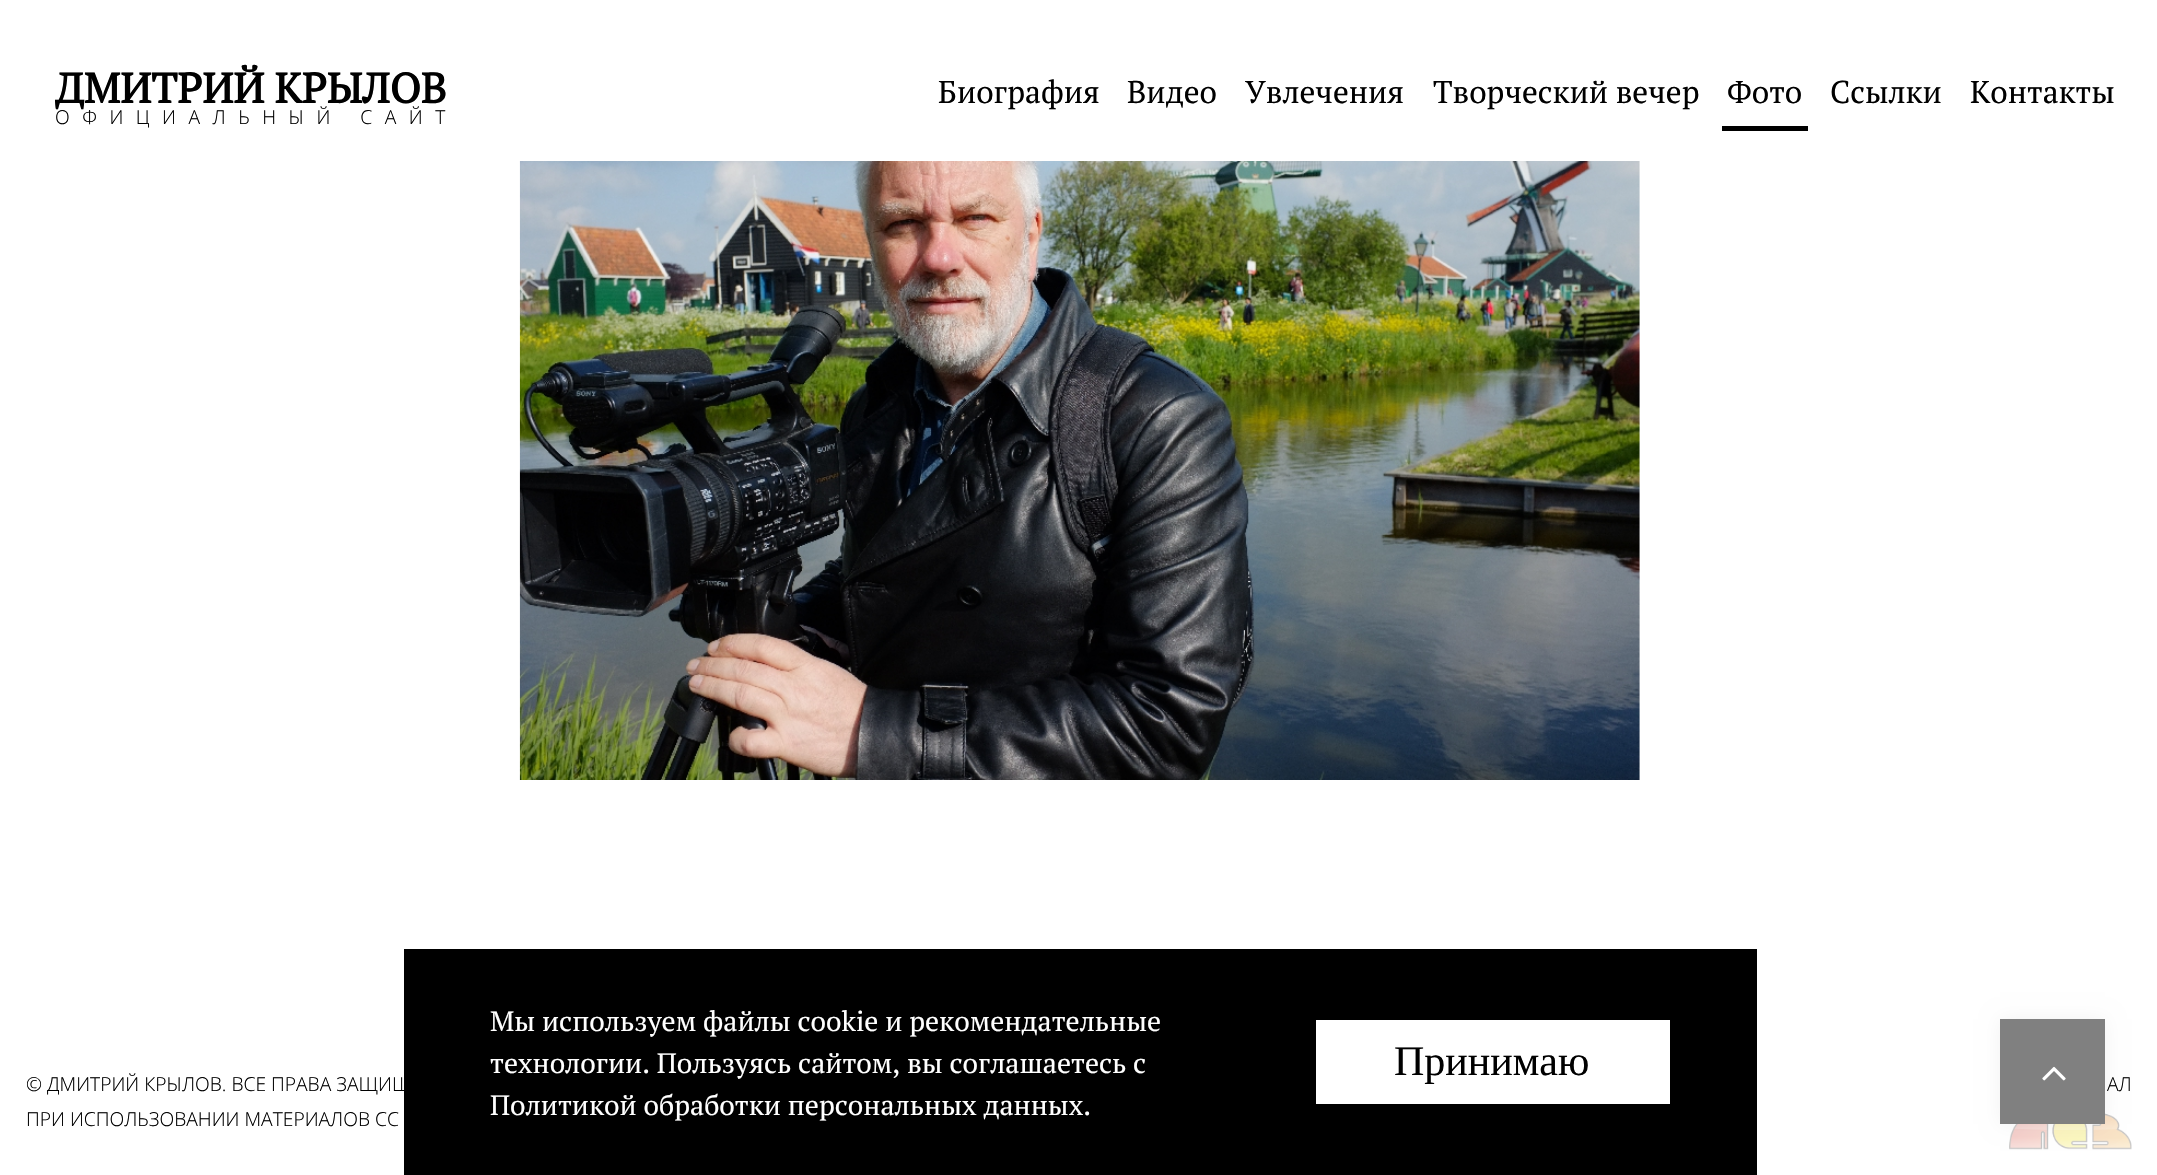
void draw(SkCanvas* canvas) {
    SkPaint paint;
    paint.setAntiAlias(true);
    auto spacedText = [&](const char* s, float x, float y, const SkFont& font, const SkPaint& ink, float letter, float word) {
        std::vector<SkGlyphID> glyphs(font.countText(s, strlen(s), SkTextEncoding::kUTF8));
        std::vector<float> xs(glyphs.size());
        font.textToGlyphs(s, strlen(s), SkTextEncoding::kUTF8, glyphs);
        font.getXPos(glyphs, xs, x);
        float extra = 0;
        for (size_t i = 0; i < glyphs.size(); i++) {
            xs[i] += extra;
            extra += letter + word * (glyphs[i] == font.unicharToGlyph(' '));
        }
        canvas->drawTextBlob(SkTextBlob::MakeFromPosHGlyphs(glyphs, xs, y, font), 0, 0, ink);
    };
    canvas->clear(0xFFFFFFFF);
    SkFont font1(fontMgr->matchFamilyStyle("PT Serif", SkFontStyle::Bold()), 42);
    font1.setSubpixel(true);
    paint.setColor(0xFF000000);
    canvas->drawString("ДМИТРИЙ КРЫЛОВ", 55, 103, font1, paint);
    SkFont font2(fontMgr->matchFamilyStyle("Open Sans", SkFontStyle(300, SkFontStyle::kNormal_Width, SkFontStyle::kUpright_Slant)), 19.25f);
    font2.setSubpixel(true);
    spacedText("ОФИЦИАЛЬНЫЙ САЙТ", 55, 124, font2, paint, 12.5f, 0);
    SkFont font3(fontMgr->matchFamilyStyle("PT Serif", SkFontStyle::Normal()), 31.5f);
    font3.setSubpixel(true);
    canvas->drawString("Биография", 938, 103, font3, paint);
    canvas->drawString("Видео", 1127, 103, font3, paint);
    canvas->drawString("Увлечения", 1245, 103, font3, paint);
    canvas->drawString("Творческий вечер", 1433, 103, font3, paint);
    canvas->drawRect(SkRect::MakeXYWH(1722, 126, 86, 5), paint);
    canvas->drawString("Фото", 1727, 103, font3, paint);
    canvas->drawString("Ссылки", 1830, 103, font3, paint);
    canvas->drawString("Контакты", 1970, 103, font3, paint);
    canvas->drawImageRect(SkImages::DeferredFromEncodedData(SkData::MakeFromFileName("img1.png")), SkRect::MakeXYWH(519, 161, 1121, 619), SkSamplingOptions());
    canvas->drawRect(SkRect::MakeXYWH(404, 949, 1353, 226), paint);
    SkFont font4(fontMgr->matchFamilyStyle("PT Serif", SkFontStyle::Normal()), 28);
    font4.setSubpixel(true);
    paint.setColor(0xFFFFFFFF);
    canvas->drawString("Мы используем файлы cookie и рекомендательные", 490, 1031, font4, paint);
    canvas->drawString("технологии. Пользуясь сайтом, вы соглашаетесь с", 490, 1073, font4, paint);
    canvas->drawString("Политикой обработки персональных данных.", 490, 1115, font4, paint);
    canvas->drawRect(SkRect::MakeXYWH(1316, 1020, 354, 84), paint);
    SkFont font5(fontMgr->matchFamilyStyle("Liberation Serif", SkFontStyle::Normal()), 42);
    font5.setSubpixel(true);
    paint.setColor(0xFF000000);
    canvas->drawString("Принимаю", 1394, 1075, font5, paint);
    canvas->drawString("© ДМИТРИЙ КРЫЛОВ. ВСЕ ПРАВА ЗАЩИЩ", 26, 1091, font2, paint);
    canvas->drawString("ПРИ ИСПОЛЬЗОВАНИИ МАТЕРИАЛОВ СС", 26, 1126, font2, paint);
    canvas->drawString("АЛ", 2107, 1091, font2, paint);
    canvas->drawImageRect(SkImages::DeferredFromEncodedData(SkData::MakeFromFileName("img2.png")), SkRect::MakeXYWH(2009, 1113, 123, 37), SkSamplingOptions());
    paint.setColor(0x0D000000);
    paint.setMaskFilter(SkMaskFilter::MakeBlur(kNormal_SkBlurStyle, 9));
    canvas->drawRect(SkRect::MakeXYWH(2000, 1019, 105, 105), paint);
    paint.setMaskFilter(nullptr);
    paint.setColor(0xFF808080);
    canvas->drawRect(SkRect::MakeXYWH(2000, 1019, 105, 105), paint);
    canvas->drawImageRect(SkImages::DeferredFromEncodedData(SkData::MakeFromFileName("img3.png")), SkRect::MakeXYWH(2042, 1066, 24, 15), SkSamplingOptions());
}
